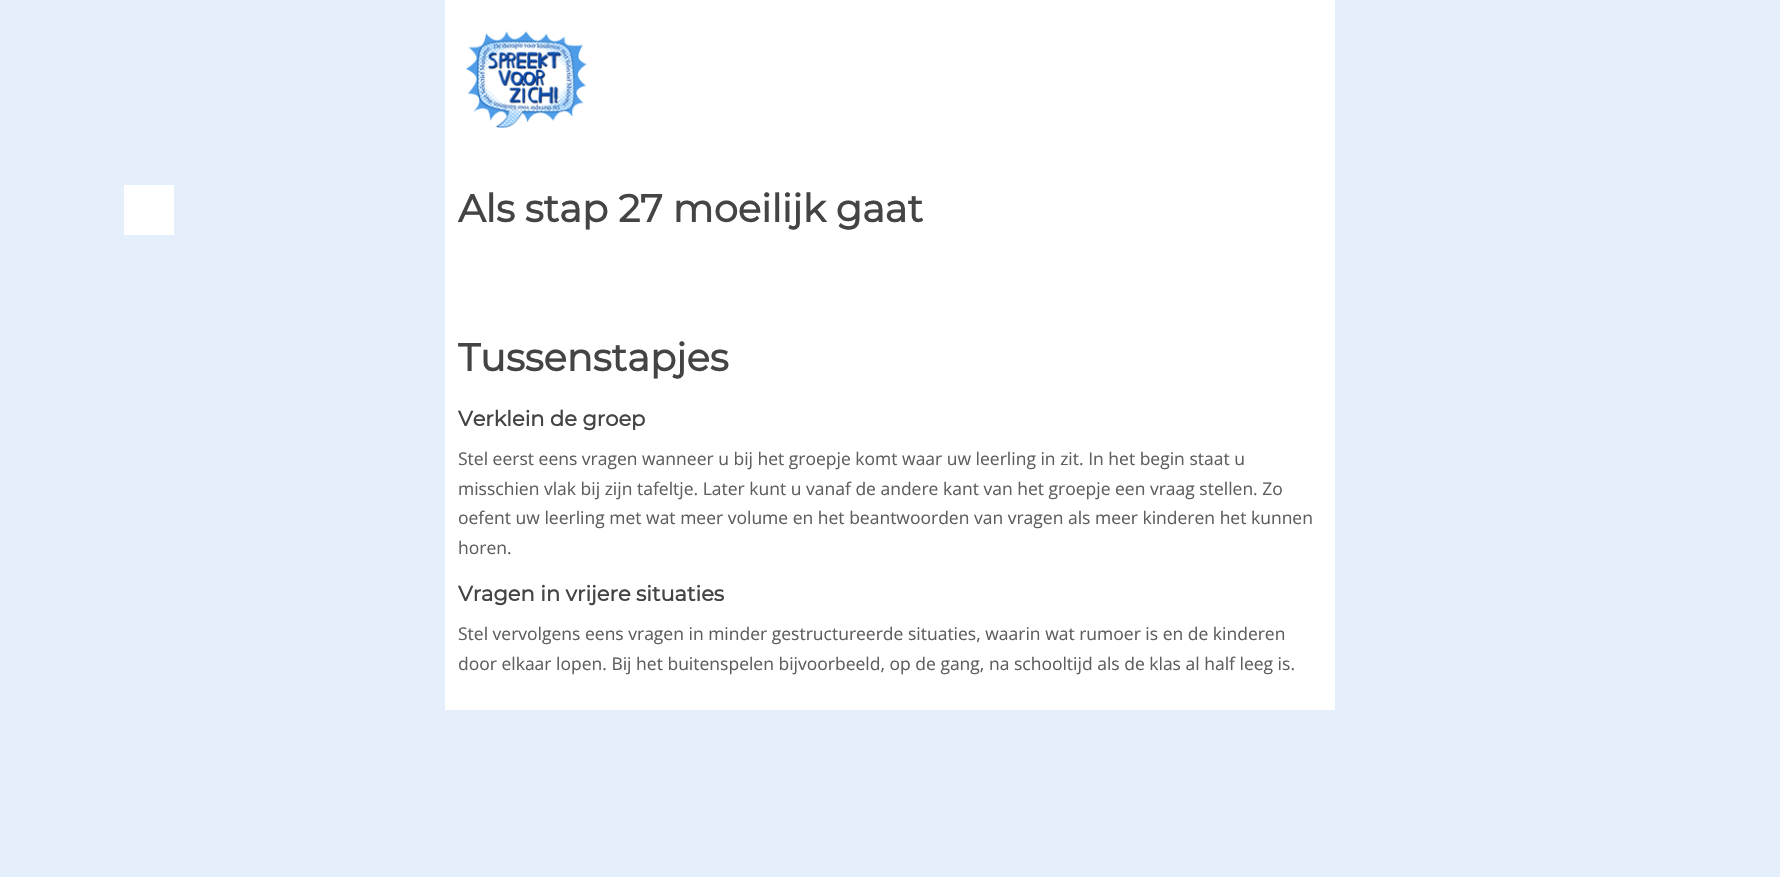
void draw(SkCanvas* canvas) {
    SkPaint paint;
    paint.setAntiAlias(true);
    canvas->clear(0xFFE4EFFB);
    paint.setColor(0xFFFFFFFF);
    canvas->drawRect(SkRect::MakeXYWH(445, 0, 890, 710), paint);
    canvas->drawImageRect(SkImages::DeferredFromEncodedData(SkData::MakeFromFileName("img1.png")), SkRect::MakeXYWH(465, 31, 122, 97), SkSamplingOptions());
    canvas->drawRect(SkRect::MakeXYWH(124, 185, 50, 50), paint);
    SkFont font1(fontMgr->matchFamilyStyle("Montserrat", SkFontStyle::Bold()), 38.5f);
    font1.setSubpixel(true);
    paint.setColor(0xFF444444);
    canvas->drawString("Als stap 27 moeilijk gaat", 458, 222, font1, paint);
    canvas->drawString("Tussenstapjes", 458, 371, font1, paint);
    SkFont font2(fontMgr->matchFamilyStyle("Montserrat", SkFontStyle::Bold()), 21);
    font2.setSubpixel(true);
    canvas->drawString("Verklein de groep", 458, 426, font2, paint);
    SkFont font3(fontMgr->matchFamilyStyle("Open Sans", SkFontStyle::Normal()), 17.5f);
    font3.setSubpixel(true);
    paint.setColor(0xFF5E5E5E);
    canvas->drawString("Stel eerst eens vragen wanneer u bij het groepje komt waar uw leerling in zit. In het begin staat u", 458, 465, font3, paint);
    canvas->drawString("misschien vlak bij zijn tafeltje. Later kunt u vanaf de andere kant van het groepje een vraag stellen. Zo", 458, 495, font3, paint);
    canvas->drawString("oefent uw leerling met wat meer volume en het beantwoorden van vragen als meer kinderen het kunnen", 458, 524, font3, paint);
    canvas->drawString("horen.", 458, 554, font3, paint);
    paint.setColor(0xFF444444);
    canvas->drawString("Vragen in vrijere situaties", 458, 601, font2, paint);
    paint.setColor(0xFF5E5E5E);
    canvas->drawString("Stel vervolgens eens vragen in minder gestructureerde situaties, waarin wat rumoer is en de kinderen", 458, 640, font3, paint);
    canvas->drawString("door elkaar lopen. Bij het buitenspelen bijvoorbeeld, op de gang, na schooltijd als de klas al half leeg is.", 458, 670, font3, paint);
}
